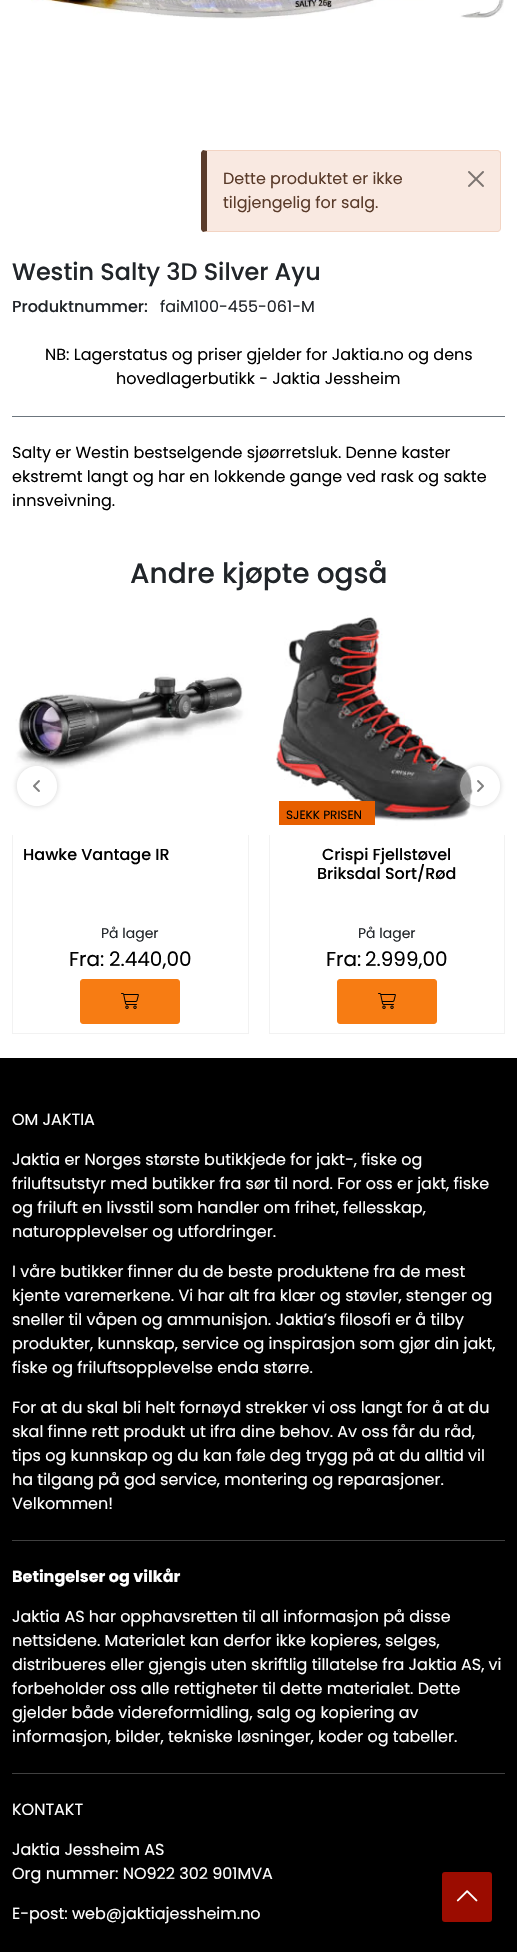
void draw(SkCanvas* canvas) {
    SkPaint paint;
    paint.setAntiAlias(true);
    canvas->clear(0xFFFFFFFF);
    paint.setColor(0xFFF9E9E1);
    canvas->drawPath(SkPathBuilder().moveTo(207, 151).lineTo(498, 151).cubicTo(499, 151, 500, 152, 500, 153).lineTo(500, 229).cubicTo(500, 230, 499, 231, 498, 231).lineTo(207, 231).close().detach(), paint);
    paint.setColor(0xFFF3D4C3);
    canvas->drawPath(SkPathBuilder().moveTo(204, 150).lineTo(203, 150).lineTo(207, 151).lineTo(498, 151).lineTo(499, 152).lineTo(500, 151).lineTo(498, 150).close().detach(), paint);
    canvas->drawPath(SkPathBuilder().moveTo(501, 229).lineTo(501, 152).lineTo(500, 151).lineTo(499, 152).lineTo(500, 153).lineTo(500, 229).lineTo(499, 230).lineTo(500, 231).close().detach(), paint);
    canvas->drawPath(SkPathBuilder().moveTo(204, 232).lineTo(498, 232).lineTo(500, 231).lineTo(499, 230).lineTo(498, 231).lineTo(207, 231).lineTo(203, 232).close().detach(), paint);
    paint.setColor(0xFF5A3B2A);
    canvas->drawPath(SkPathBuilder().moveTo(207, 151).lineTo(203, 150).cubicTo(202, 151, 201, 152, 201, 153).lineTo(201, 229).cubicTo(201, 230, 202, 231, 203, 232).lineTo(207, 231).close().detach(), paint);
    SkFont font1(fontMgr->matchFamilyStyle("Poppins", SkFontStyle::Normal()), 16);
    font1.setSubpixel(true);
    canvas->drawString("Dette produktet er ikke", 223, 184, font1, paint);
    canvas->drawImageRect(SkImages::DeferredFromEncodedData(SkData::MakeFromFileName("img1.png")), SkRect::MakeXYWH(468, 171, 16, 16), SkSamplingOptions());
    canvas->drawString("tilgjengelig for salg.", 223, 208, font1, paint);
    canvas->drawImageRect(SkImages::DeferredFromEncodedData(SkData::MakeFromFileName("img2.png")), SkRect::MakeXYWH(31, 0, 473, 19), SkSamplingOptions());
    SkFont font2(fontMgr->matchFamilyStyle("Poppins", SkFontStyle(500, SkFontStyle::kNormal_Width, SkFontStyle::kUpright_Slant)), 23.9f);
    font2.setSubpixel(true);
    paint.setColor(0xFF212529);
    canvas->drawString("Westin Salty 3D Silver Ayu", 12, 280, font2, paint);
    SkFont font3(fontMgr->matchFamilyStyle("Poppins", SkFontStyle(500, SkFontStyle::kNormal_Width, SkFontStyle::kUpright_Slant)), 16);
    font3.setSubpixel(true);
    canvas->drawString("Produktnummer:", 12, 312, font3, paint);
    canvas->drawString("faiM100-455-061-M", 160, 312, font1, paint);
    paint.setColor(0xFF000000);
    canvas->drawString("NB: Lagerstatus og priser gjelder for Jaktia.no og dens", 45, 360, font1, paint);
    canvas->drawString("hovedlagerbutikk - Jaktia Jessheim", 116, 384, font1, paint);
    paint.setColor(0xFF6C757D);
    canvas->drawRect(SkRect::MakeXYWH(12, 416, 493, 1), paint);
    paint.setColor(0xFF000000);
    canvas->drawString("Salty er Westin bestselgende sjøørretsluk. Denne kaster", 12, 458, font1, paint);
    canvas->drawString("ekstremt langt og har en lokkende gange ved rask og sakte", 12, 482, font1, paint);
    canvas->drawString("innsveivning.", 12, 506, font1, paint);
    SkFont font4(fontMgr->matchFamilyStyle("Poppins", SkFontStyle(500, SkFontStyle::kNormal_Width, SkFontStyle::kUpright_Slant)), 28);
    font4.setSubpixel(true);
    paint.setColor(0xFF212529);
    canvas->drawString("Andre kjøpte også", 130, 583, font4, paint);
    canvas->drawImageRect(SkImages::DeferredFromEncodedData(SkData::MakeFromFileName("img5.png")), SkRect::MakeXYWH(12, 598, 237, 237), SkSamplingOptions());
    canvas->save();
    canvas->clipPath(SkPathBuilder(SkPathFillType::kEvenOdd).moveTo(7, 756).lineTo(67, 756).lineTo(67, 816).lineTo(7, 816).close().moveTo(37, 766).cubicTo(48, 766, 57, 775, 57, 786).cubicTo(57, 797, 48, 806, 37, 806).cubicTo(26, 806, 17, 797, 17, 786).cubicTo(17, 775, 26, 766, 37, 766).close().detach(), true);
    paint.setColor(0x80BBBBBB);
    paint.setMaskFilter(SkMaskFilter::MakeBlur(kNormal_SkBlurStyle, 2.5f));
    canvas->drawRoundRect(SkRect::MakeXYWH(16, 765, 42, 42), 21, 21, paint);
    paint.setMaskFilter(nullptr);
    canvas->restore();
    paint.setColor(0x80FFFFFF);
    canvas->drawCircle(37, 786, 20, paint);
    canvas->drawImageRect(SkImages::DeferredFromEncodedData(SkData::MakeFromFileName("img3.png")), SkRect::MakeXYWH(33, 780, 7, 12), SkSamplingOptions());
    canvas->drawImageRect(SkImages::DeferredFromEncodedData(SkData::MakeFromFileName("img7.png")), SkRect::MakeXYWH(269, 598, 236, 237), SkSamplingOptions());
    canvas->save();
    canvas->clipPath(SkPathBuilder(SkPathFillType::kEvenOdd).moveTo(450, 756).lineTo(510, 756).lineTo(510, 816).lineTo(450, 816).close().moveTo(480, 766).cubicTo(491, 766, 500, 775, 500, 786).cubicTo(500, 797, 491, 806, 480, 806).cubicTo(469, 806, 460, 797, 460, 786).cubicTo(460, 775, 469, 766, 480, 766).close().detach(), true);
    paint.setColor(0x80BBBBBB);
    paint.setMaskFilter(SkMaskFilter::MakeBlur(kNormal_SkBlurStyle, 2.5f));
    canvas->drawRoundRect(SkRect::MakeXYWH(459, 765, 42, 42), 21, 21, paint);
    paint.setMaskFilter(nullptr);
    canvas->restore();
    paint.setColor(0x80FFFFFF);
    canvas->drawCircle(480, 786, 20, paint);
    canvas->drawImageRect(SkImages::DeferredFromEncodedData(SkData::MakeFromFileName("img4.png")), SkRect::MakeXYWH(477, 780, 7, 12), SkSamplingOptions());
    paint.setColor(0xFFF2F2F2);
    canvas->drawPath(SkPathBuilder().moveTo(249, 835).lineTo(249, 1034).lineTo(248, 1033).lineTo(248, 835).close().detach(), paint);
    paint.setColor(0x0D000000);
    canvas->drawPath(SkPathBuilder().moveTo(249, 1034).lineTo(12, 1034).lineTo(13, 1033).lineTo(248, 1033).close().detach(), paint);
    canvas->drawPath(SkPathBuilder().moveTo(12, 1034).lineTo(12, 835).lineTo(13, 835).lineTo(13, 1033).close().detach(), paint);
    paint.setColor(0xFF000000);
    canvas->drawString("Hawke Vantage IR", 23, 860, font3, paint);
    SkFont font5(fontMgr->matchFamilyStyle("Poppins", SkFontStyle::Normal()), 14);
    font5.setSubpixel(true);
    paint.setColor(0xFF212529);
    canvas->drawString("På lager", 101, 938, font5, paint);
    SkFont font6(fontMgr->matchFamilyStyle("Poppins", SkFontStyle::Normal()), 20);
    font6.setSubpixel(true);
    paint.setColor(0xFF000000);
    canvas->drawString("Fra:", 69, 966, font6, paint);
    canvas->drawString("2.440,00", 109, 966, font6, paint);
    paint.setColor(0xFFF77C13);
    canvas->drawRoundRect(SkRect::MakeXYWH(80.5f, 979.5f, 99, 44), 2.5f, 2.5f, paint);
    paint.setStyle(SkPaint::kStroke_Style);
    paint.setStrokeWidth(1);
    canvas->drawRoundRect(SkRect::MakeXYWH(80.5f, 979.5f, 99, 44), 2.5f, 2.5f, paint);
    canvas->drawImageRect(SkImages::DeferredFromEncodedData(SkData::MakeFromFileName("img6.png")), SkRect::MakeXYWH(121, 993, 18, 16), SkSamplingOptions());
    paint.setStyle(SkPaint::kFill_Style);
    paint.setColor(0xFFE75F00);
    canvas->drawRect(SkRect::MakeXYWH(279, 801, 96, 24), paint);
    SkFont font7(fontMgr->matchFamilyStyle("Poppins", SkFontStyle::Normal()), 12);
    font7.setSubpixel(true);
    paint.setColor(0xFF000000);
    canvas->drawString("SJEKK PRISEN", 286, 819, font7, paint);
    paint.setColor(0xFFF2F2F2);
    canvas->drawPath(SkPathBuilder().moveTo(505, 835).lineTo(505, 1034).lineTo(504, 1033).lineTo(504, 835).close().detach(), paint);
    paint.setColor(0x0D000000);
    canvas->drawPath(SkPathBuilder().moveTo(505, 1034).lineTo(269, 1034).lineTo(270, 1033).lineTo(504, 1033).close().detach(), paint);
    canvas->drawPath(SkPathBuilder().moveTo(269, 1034).lineTo(269, 835).lineTo(270, 835).lineTo(270, 1033).close().detach(), paint);
    paint.setColor(0xFF000000);
    canvas->drawString("Crispi Fjellstøvel", 322, 860, font3, paint);
    canvas->drawString("Briksdal Sort/Rød", 317, 879, font3, paint);
    paint.setColor(0xFF212529);
    canvas->drawString("På lager", 358, 938, font5, paint);
    paint.setColor(0xFF000000);
    canvas->drawString("Fra:", 326, 966, font6, paint);
    canvas->drawString("2.999,00", 365, 966, font6, paint);
    paint.setColor(0xFFF77C13);
    canvas->drawRoundRect(SkRect::MakeXYWH(337.5f, 979.5f, 99, 44), 2.5f, 2.5f, paint);
    paint.setStyle(SkPaint::kStroke_Style);
    canvas->drawRoundRect(SkRect::MakeXYWH(337.5f, 979.5f, 99, 44), 2.5f, 2.5f, paint);
    canvas->drawImageRect(SkImages::DeferredFromEncodedData(SkData::MakeFromFileName("img6.png")), SkRect::MakeXYWH(378, 993, 18, 16), SkSamplingOptions());
    paint.setStyle(SkPaint::kFill_Style);
    paint.setColor(0xFF000000);
    canvas->drawRect(SkRect::MakeXYWH(0, 1058, 517, 894), paint);
    paint.setColor(0xFF9B0C00);
    canvas->drawRoundRect(SkRect::MakeXYWH(442, 1872, 50, 50), 3, 3, paint);
    canvas->drawImageRect(SkImages::DeferredFromEncodedData(SkData::MakeFromFileName("img8.png")), SkRect::MakeXYWH(456, 1890, 22, 12), SkSamplingOptions());
    paint.setColor(0xFFFFFFFF);
    canvas->drawString("OM JAKTIA", 12, 1125, font1, paint);
    canvas->drawString("Jaktia er Norges største butikkjede for jakt-, fiske og", 12, 1165, font1, paint);
    canvas->drawString("friluftsutstyr med butikker fra sør til nord. For oss er jakt, fiske", 12, 1189, font1, paint);
    canvas->drawString("og friluft en livsstil som handler om frihet, fellesskap,", 12, 1213, font1, paint);
    canvas->drawString("naturopplevelser og utfordringer.", 12, 1237, font1, paint);
    canvas->drawString("I våre butikker finner du de beste produktene fra de mest", 12, 1277, font1, paint);
    canvas->drawString("kjente varemerkene. Vi har alt fra klær og støvler, stenger og", 12, 1301, font1, paint);
    canvas->drawString("sneller til våpen og ammunisjon. Jaktia’s filosofi er å tilby", 12, 1325, font1, paint);
    canvas->drawString("produkter, kunnskap, service og inspirasjon som gjør din jakt,", 12, 1349, font1, paint);
    canvas->drawString("fiske og friluftsopplevelse enda større.", 12, 1373, font1, paint);
    canvas->drawString("For at du skal bli helt fornøyd strekker vi oss langt for å at du", 12, 1413, font1, paint);
    canvas->drawString("skal finne rett produkt ut ifra dine behov. Av oss får du råd,", 12, 1437, font1, paint);
    canvas->drawString("tips og kunnskap og du kan føle deg trygg på at du alltid vil", 12, 1461, font1, paint);
    canvas->drawString("ha tilgang på god service, montering og reparasjoner.", 12, 1485, font1, paint);
    canvas->drawString("Velkommen!", 12, 1509, font1, paint);
    paint.setColor(0xFF404040);
    canvas->drawRect(SkRect::MakeXYWH(12, 1540, 493, 1), paint);
    SkFont font8(fontMgr->matchFamilyStyle("Poppins", SkFontStyle::Bold()), 16);
    font8.setSubpixel(true);
    paint.setColor(0xFFFFFFFF);
    canvas->drawString("Betingelser og vilkår", 12, 1582, font8, paint);
    canvas->drawString("Jaktia AS har opphavsretten til all informasjon på disse", 12, 1622, font1, paint);
    canvas->drawString("nettsidene. Materialet kan derfor ikke kopieres, selges,", 12, 1646, font1, paint);
    canvas->drawString("distribueres eller gjengis uten skriftlig tillatelse fra Jaktia AS, vi", 12, 1670, font1, paint);
    canvas->drawString("forbeholder oss alle rettigheter til dette materialet. Dette", 12, 1694, font1, paint);
    canvas->drawString("gjelder både videreformidling, salg og kopiering av", 12, 1718, font1, paint);
    canvas->drawString("informasjon, bilder, tekniske løsninger, koder og tabeller.", 12, 1742, font1, paint);
    paint.setColor(0xFF404040);
    canvas->drawRect(SkRect::MakeXYWH(12, 1773, 493, 1), paint);
    paint.setColor(0xFFFFFFFF);
    canvas->drawString("KONTAKT", 12, 1815, font1, paint);
    canvas->drawString("Jaktia Jessheim AS", 12, 1855, font1, paint);
    canvas->drawString("Org nummer: NO922 302 901MVA", 12, 1879, font1, paint);
    canvas->drawString("E-post: web@jaktiajessheim.no", 12, 1919, font1, paint);
}
